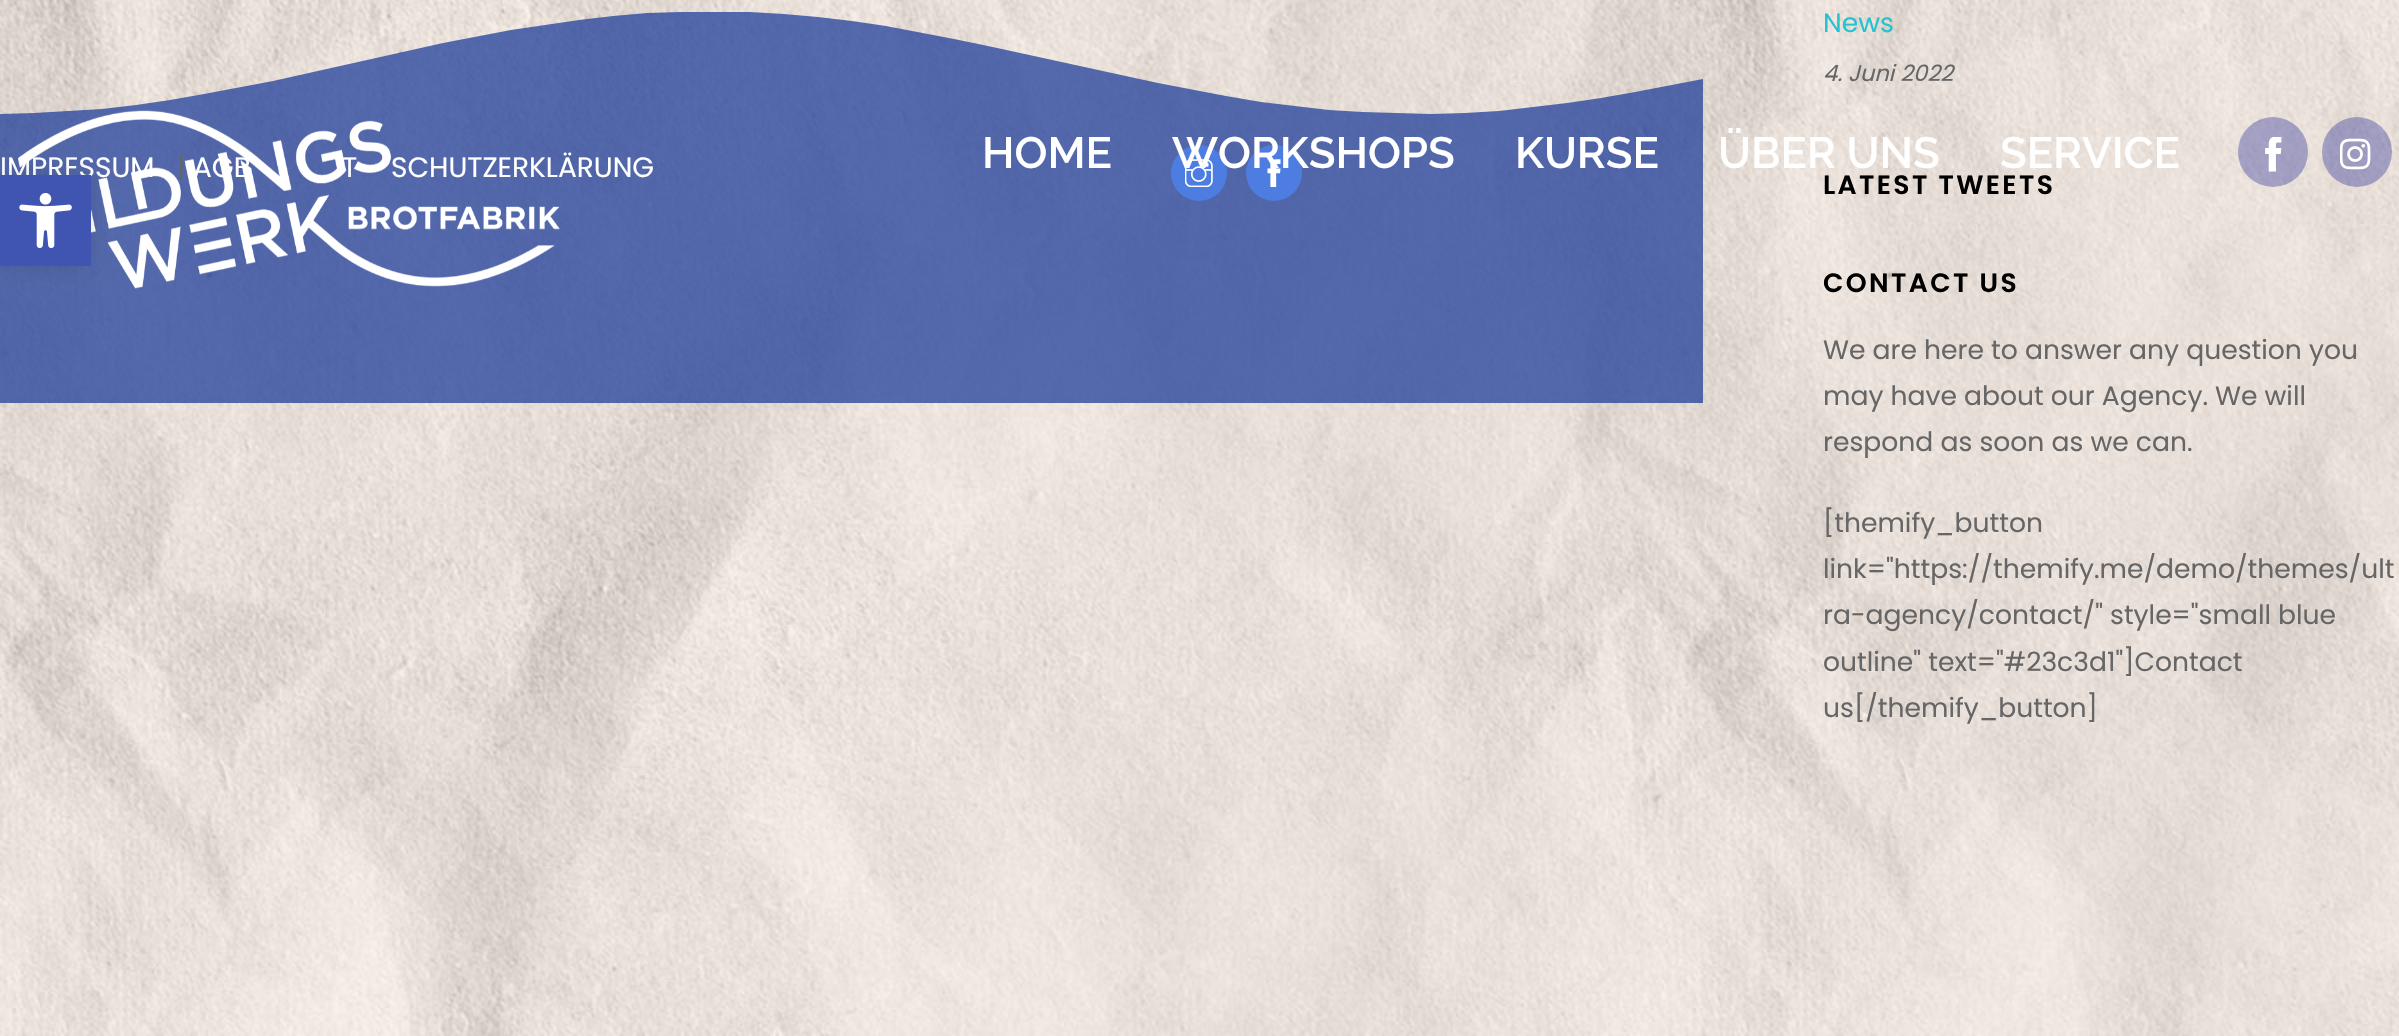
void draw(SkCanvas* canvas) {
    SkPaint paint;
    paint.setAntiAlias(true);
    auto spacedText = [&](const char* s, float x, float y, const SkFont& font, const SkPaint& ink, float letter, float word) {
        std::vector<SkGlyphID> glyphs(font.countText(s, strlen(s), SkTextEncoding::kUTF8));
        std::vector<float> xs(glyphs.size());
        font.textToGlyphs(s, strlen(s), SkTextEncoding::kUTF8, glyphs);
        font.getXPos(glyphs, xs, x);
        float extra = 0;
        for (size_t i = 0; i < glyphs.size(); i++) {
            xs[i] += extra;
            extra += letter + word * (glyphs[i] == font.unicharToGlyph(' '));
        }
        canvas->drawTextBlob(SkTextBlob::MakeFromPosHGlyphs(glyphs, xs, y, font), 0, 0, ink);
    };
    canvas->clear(0xFFFFFFFF);
    canvas->drawImageRect(SkImages::DeferredFromEncodedData(SkData::MakeFromFileName("img1.png")), SkRect::MakeXYWH(0, 0, 2399, 1036), SkSamplingOptions());
    paint.setColor(0xBF203F99);
    canvas->drawPath(SkPathBuilder().moveTo(0, 114).lineTo(0, 403).lineTo(1703, 403).lineTo(1703, 79).lineTo(1635, 92).lineTo(1601, 98).lineTo(1567, 103).lineTo(1533, 107).lineTo(1499, 111).lineTo(1465, 113).lineTo(1431, 114).lineTo(1397, 113).lineTo(1363, 112).lineTo(1329, 110).lineTo(1295, 106).lineTo(1261, 102).lineTo(1226, 96).lineTo(1158, 83).lineTo(988, 46).lineTo(954, 39).lineTo(886, 26).lineTo(852, 21).lineTo(818, 17).lineTo(784, 14).lineTo(750, 12).lineTo(715, 12).lineTo(681, 12).lineTo(647, 13).lineTo(613, 16).lineTo(579, 20).lineTo(545, 25).lineTo(511, 30).lineTo(443, 43).lineTo(273, 81).lineTo(204, 94).lineTo(170, 100).lineTo(136, 105).lineTo(102, 109).lineTo(68, 111).lineTo(34, 113).close().detach(), paint);
    SkFont font1(fontMgr->matchFamilyStyle("Poppins", SkFontStyle::Normal()), 28);
    font1.setSubpixel(true);
    paint.setColor(0xFFFFFFFF);
    canvas->drawString("IMPRESSUM", 0, 177, font1, paint);
    paint.setColor(0xFF666666);
    canvas->drawString("|", 177, 177, font1, paint);
    paint.setColor(0xFFFFFFFF);
    canvas->drawString("AGB", 193, 177, font1, paint);
    canvas->drawString("T", 342, 177, font1, paint);
    canvas->drawString("SCHUTZERKLÄRUNG", 391, 177, font1, paint);
    paint.setColor(0xFF4D7DE1);
    canvas->drawCircle(1199, 173, 28, paint);
    canvas->drawImageRect(SkImages::DeferredFromEncodedData(SkData::MakeFromFileName("img2.png")), SkRect::MakeXYWH(1185, 159, 28, 28), SkSamplingOptions());
    canvas->drawCircle(1274, 173, 28, paint);
    canvas->drawImageRect(SkImages::DeferredFromEncodedData(SkData::MakeFromFileName("img3.png")), SkRect::MakeXYWH(1267, 159, 14, 28), SkSamplingOptions());
    SkFont font2(fontMgr->matchFamilyStyle("Poppins", SkFontStyle::Normal()), 26.6f);
    font2.setSubpixel(true);
    paint.setColor(0xFF23C3D1);
    canvas->drawString("News", 1823, 32, font2, paint);
    SkFont font3(fontMgr->matchFamilyStyle("Poppins", SkFontStyle::Italic()), 22.5f);
    font3.setSubpixel(true);
    paint.setColor(0xFF666666);
    canvas->drawString("4. Juni 2022", 1823, 81, font3, paint);
    SkFont font4(fontMgr->matchFamilyStyle("Poppins", SkFontStyle(600, SkFontStyle::kNormal_Width, SkFontStyle::kUpright_Slant)), 26.6f);
    font4.setSubpixel(true);
    paint.setColor(0xFF000000);
    spacedText("LATEST TWEETS", 1823, 194, font4, paint, 2.4f, 0);
    spacedText("CONTACT US", 1823, 292, font4, paint, 2.4f, 0);
    paint.setColor(0xFF666666);
    canvas->drawString("We are here to answer any question you", 1823, 359, font2, paint);
    canvas->drawString("may have about our Agency.", 1823, 405, font2, paint);
    canvas->drawString("We will", 2215, 405, font2, paint);
    canvas->drawString("respond as soon as we can.", 1823, 451, font2, paint);
    canvas->drawString("[themify_button", 1823, 532, font2, paint);
    canvas->drawString("link=\"https://themify.me/demo/themes/ult", 1823, 578, font2, paint);
    canvas->drawString("ra-agency/contact/\" style=\"small blue", 1823, 624, font2, paint);
    canvas->drawString("outline\" text=\"#23c3d1\"]Contact", 1823, 671, font2, paint);
    canvas->drawString("us[/themify_button]", 1823, 717, font2, paint);
    canvas->drawImageRect(SkImages::DeferredFromEncodedData(SkData::MakeFromFileName("img4.png")), SkRect::MakeXYWH(18, 110, 542, 179), SkSamplingOptions());
    SkFont font5(fontMgr->matchFamilyStyle("Raleway", SkFontStyle(600, SkFontStyle::kNormal_Width, SkFontStyle::kUpright_Slant)), 43.75f);
    font5.setSubpixel(true);
    paint.setColor(0xFFFFFFFF);
    canvas->drawString("HOME", 982, 168, font5, paint);
    canvas->drawString("WORKSHOPS", 1172, 168, font5, paint);
    canvas->drawString("KURSE", 1515, 168, font5, paint);
    canvas->drawString("ÜBER UNS", 1718, 168, font5, paint);
    canvas->drawString("SERVICE", 2000, 168, font5, paint);
    paint.setColor(0x66383D9D);
    canvas->drawCircle(2273, 152, 35, paint);
    canvas->drawImageRect(SkImages::DeferredFromEncodedData(SkData::MakeFromFileName("img5.png")), SkRect::MakeXYWH(2265, 137, 17, 35), SkSamplingOptions());
    canvas->drawCircle(2357, 152, 35, paint);
    canvas->drawImageRect(SkImages::DeferredFromEncodedData(SkData::MakeFromFileName("img6.png")), SkRect::MakeXYWH(2340, 138, 31, 32), SkSamplingOptions());
    paint.setColor(0x1A000000);
    paint.setMaskFilter(SkMaskFilter::MakeBlur(kNormal_SkBlurStyle, 9));
    canvas->drawRect(SkRect::MakeXYWH(0, 175, 91, 91), paint);
    paint.setMaskFilter(nullptr);
    paint.setColor(0xFF4054B2);
    canvas->drawRect(SkRect::MakeXYWH(0, 175, 91, 91), paint);
    canvas->drawImageRect(SkImages::DeferredFromEncodedData(SkData::MakeFromFileName("img7.png")), SkRect::MakeXYWH(19, 193, 53, 56), SkSamplingOptions());
}
